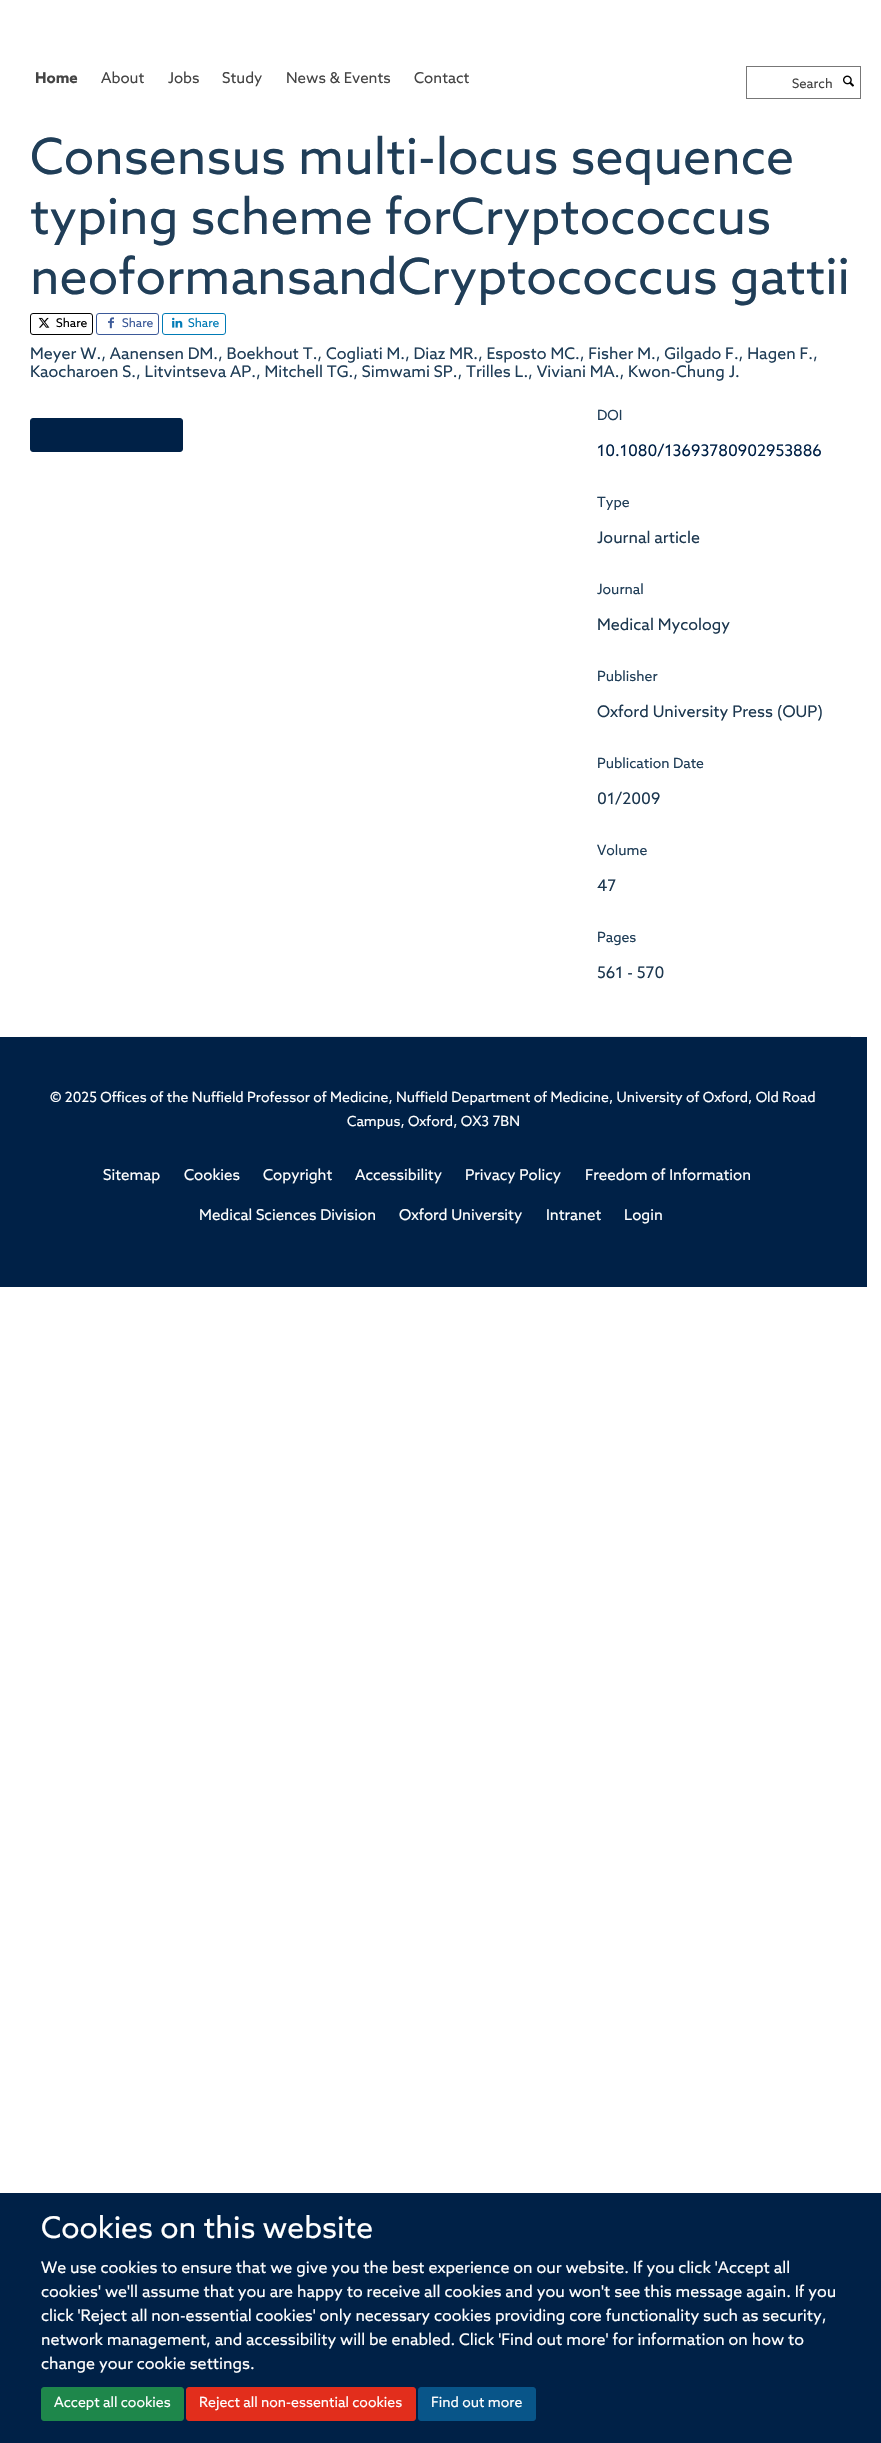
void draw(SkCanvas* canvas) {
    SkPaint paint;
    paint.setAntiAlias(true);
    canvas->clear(0xFFFFFFFF);
    SkFont font1(fontMgr->matchFamilyStyle("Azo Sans", SkFontStyle::Bold()), 15);
    font1.setSubpixel(true);
    paint.setColor(0xFF444444);
    canvas->drawString("Home", 35, 83, font1, paint);
    SkFont font2(fontMgr->matchFamilyStyle("Azo Sans", SkFontStyle::Normal()), 15);
    font2.setSubpixel(true);
    canvas->drawString("About", 101, 83, font2, paint);
    canvas->drawString("Jobs", 168, 83, font2, paint);
    canvas->drawString("Study", 222, 83, font2, paint);
    canvas->drawString("News & Events", 286, 83, font2, paint);
    canvas->drawString("Contact", 414, 83, font2, paint);
    paint.setStyle(SkPaint::kStroke_Style);
    paint.setStrokeWidth(1);
    paint.setColor(0xFF777777);
    canvas->drawRect(SkRect::MakeXYWH(746.5f, 66.5f, 114, 32), paint);
    SkFont font3(fontMgr->matchFamilyStyle("Azo Sans", SkFontStyle::Normal()), 13);
    font3.setSubpixel(true);
    paint.setStyle(SkPaint::kFill_Style);
    paint.setColor(0xFF444444);
    canvas->drawString("Search", 792, 88, font3, paint);
    canvas->drawImageRect(SkImages::DeferredFromEncodedData(SkData::MakeFromFileName("img1.png")), SkRect::MakeXYWH(843, 75, 11, 12), SkSamplingOptions());
    SkFont font4(fontMgr->matchFamilyStyle("Azo Sans", SkFontStyle::Normal()), 50);
    font4.setSubpixel(true);
    paint.setColor(0xFF203E58);
    canvas->drawString("Consensus multi-locus sequence", 30, 174, font4, paint);
    canvas->drawString("typing scheme forCryptococcus", 30, 234, font4, paint);
    canvas->drawString("neoformansandCryptococcus gattii", 30, 294, font4, paint);
    paint.setStyle(SkPaint::kStroke_Style);
    paint.setColor(0xFF000000);
    canvas->drawRoundRect(SkRect::MakeXYWH(30.5f, 313.5f, 62, 21), 2.5f, 2.5f, paint);
    canvas->drawImageRect(SkImages::DeferredFromEncodedData(SkData::MakeFromFileName("img2.png")), SkRect::MakeXYWH(38, 317, 12, 11), SkSamplingOptions());
    SkFont font5(fontMgr->matchFamilyStyle("Azo Sans", SkFontStyle::Normal()), 12);
    font5.setSubpixel(true);
    paint.setStyle(SkPaint::kFill_Style);
    canvas->drawString("Share", 56, 327, font5, paint);
    paint.setStyle(SkPaint::kStroke_Style);
    paint.setColor(0xFF3B5998);
    canvas->drawRoundRect(SkRect::MakeXYWH(96.5f, 313.5f, 62, 21), 2.5f, 2.5f, paint);
    canvas->drawImageRect(SkImages::DeferredFromEncodedData(SkData::MakeFromFileName("img3.png")), SkRect::MakeXYWH(108, 317, 6, 12), SkSamplingOptions());
    paint.setStyle(SkPaint::kFill_Style);
    canvas->drawString("Share", 122, 327, font5, paint);
    paint.setStyle(SkPaint::kStroke_Style);
    paint.setColor(0xFF007BB6);
    canvas->drawRoundRect(SkRect::MakeXYWH(162.5f, 313.5f, 63, 21), 2.5f, 2.5f, paint);
    canvas->drawImageRect(SkImages::DeferredFromEncodedData(SkData::MakeFromFileName("img4.png")), SkRect::MakeXYWH(172, 317, 11, 11), SkSamplingOptions());
    paint.setStyle(SkPaint::kFill_Style);
    canvas->drawString("Share", 188, 327, font5, paint);
    SkFont font6(fontMgr->matchFamilyStyle("Azo Sans", SkFontStyle::Normal()), 16);
    font6.setSubpixel(true);
    paint.setColor(0xFF203E58);
    canvas->drawString("Meyer W., Aanensen DM., Boekhout T., Cogliati M., Diaz MR., Esposto MC., Fisher M., Gilgado F., Hagen F.,", 30, 359, font6, paint);
    canvas->drawString("Kaocharoen S., Litvintseva AP., Mitchell TG., Simwami SP., Trilles L., Viviani MA., Kwon-Chung J.", 30, 377, font6, paint);
    paint.setColor(0xFF002147);
    canvas->drawRoundRect(SkRect::MakeXYWH(30.5f, 418.5f, 152, 33), 2.5f, 2.5f, paint);
    paint.setStyle(SkPaint::kStroke_Style);
    canvas->drawRoundRect(SkRect::MakeXYWH(30.5f, 418.5f, 152, 33), 2.5f, 2.5f, paint);
    SkFont font7(fontMgr->matchFamilyStyle("Azo Sans", SkFontStyle::Normal()), 14);
    font7.setSubpixel(true);
    paint.setStyle(SkPaint::kFill_Style);
    paint.setColor(0xFF203E58);
    canvas->drawString("DOI", 597, 420, font7, paint);
    paint.setColor(0xFF002147);
    canvas->drawString("10.1080/13693780902953886", 597, 456, font6, paint);
    paint.setColor(0xFF203E58);
    canvas->drawString("Type", 597, 507, font7, paint);
    paint.setColor(0xFF1D3850);
    canvas->drawString("Journal article", 597, 543, font6, paint);
    paint.setColor(0xFF203E58);
    canvas->drawString("Journal", 597, 594, font7, paint);
    paint.setColor(0xFF1D3850);
    canvas->drawString("Medical Mycology", 597, 630, font6, paint);
    paint.setColor(0xFF203E58);
    canvas->drawString("Publisher", 597, 681, font7, paint);
    paint.setColor(0xFF1D3850);
    canvas->drawString("Oxford University Press (OUP)", 597, 717, font6, paint);
    paint.setColor(0xFF203E58);
    canvas->drawString("Publication Date", 597, 768, font7, paint);
    paint.setColor(0xFF1D3850);
    canvas->drawString("01/2009", 597, 804, font6, paint);
    paint.setColor(0xFF203E58);
    canvas->drawString("Volume", 597, 855, font7, paint);
    paint.setColor(0xFF1D3850);
    canvas->drawString("47", 597, 891, font6, paint);
    paint.setColor(0xFF203E58);
    canvas->drawString("Pages", 597, 942, font7, paint);
    paint.setColor(0xFF1D3850);
    canvas->drawString("561 - 570", 597, 978, font6, paint);
    paint.setColor(0xFFEEEEEE);
    canvas->drawRect(SkRect::MakeXYWH(30, 1036, 821, 1), paint);
    paint.setColor(0xFF002147);
    canvas->drawRect(SkRect::MakeXYWH(0, 1037, 867, 250), paint);
    paint.setColor(0xFFFFFFFF);
    canvas->drawString("© 2025 Offices of the Nuffield Professor of Medicine, Nuffield Department of Medicine, University of Oxford, Old Road", 50, 1102, font7, paint);
    canvas->drawString("Campus, Oxford, OX3 7BN", 347, 1126, font7, paint);
    canvas->drawString("Sitemap", 103, 1180, font2, paint);
    canvas->drawString("Cookies", 184, 1180, font2, paint);
    canvas->drawString("Copyright", 263, 1180, font2, paint);
    canvas->drawString("Accessibility", 355, 1180, font2, paint);
    canvas->drawString("Privacy Policy", 465, 1180, font2, paint);
    canvas->drawString("Freedom of Information", 585, 1180, font2, paint);
    canvas->drawString("Medical Sciences Division", 199, 1220, font2, paint);
    canvas->drawString("Oxford University", 399, 1220, font2, paint);
    canvas->drawString("Intranet", 546, 1220, font2, paint);
    canvas->drawString("Login", 624, 1220, font2, paint);
    paint.setColor(0xFF002147);
    canvas->drawRect(SkRect::MakeXYWH(0, 2193, 881, 250), paint);
    SkFont font8(fontMgr->matchFamilyStyle("Azo Sans", SkFontStyle::Normal()), 30);
    font8.setSubpixel(true);
    paint.setColor(0xFFFFFFFF);
    canvas->drawString("Cookies on this website", 41, 2238, font8, paint);
    canvas->drawString("We use cookies to ensure that we give you the best experience on our website. If you click 'Accept all", 41, 2273, font6, paint);
    canvas->drawString("cookies' we'll assume that you are happy to receive all cookies and you won't see this message again. If you", 41, 2297, font6, paint);
    canvas->drawString("click 'Reject all non-essential cookies' only necessary cookies providing core functionality such as security,", 41, 2321, font6, paint);
    canvas->drawString("network management, and accessibility will be enabled. Click 'Find out more' for information on how to", 41, 2345, font6, paint);
    canvas->drawString("change your cookie settings.", 41, 2369, font6, paint);
    paint.setColor(0xFF1E874B);
    canvas->drawRoundRect(SkRect::MakeXYWH(41.5f, 2387.5f, 142, 33), 2.5f, 2.5f, paint);
    paint.setStyle(SkPaint::kStroke_Style);
    canvas->drawRoundRect(SkRect::MakeXYWH(41.5f, 2387.5f, 142, 33), 2.5f, 2.5f, paint);
    paint.setStyle(SkPaint::kFill_Style);
    paint.setColor(0xFFFFFFFF);
    canvas->drawString("Accept all cookies", 54, 2407, font7, paint);
    paint.setColor(0xFFE22E1C);
    canvas->drawRoundRect(SkRect::MakeXYWH(186.5f, 2387.5f, 229, 33), 2.5f, 2.5f, paint);
    paint.setStyle(SkPaint::kStroke_Style);
    canvas->drawRoundRect(SkRect::MakeXYWH(186.5f, 2387.5f, 229, 33), 2.5f, 2.5f, paint);
    paint.setStyle(SkPaint::kFill_Style);
    paint.setColor(0xFFFFFFFF);
    canvas->drawString("Reject all non-essential cookies", 199, 2407, font7, paint);
    paint.setColor(0xFF085589);
    canvas->drawRoundRect(SkRect::MakeXYWH(418.5f, 2387.5f, 117, 33), 2.5f, 2.5f, paint);
    paint.setStyle(SkPaint::kStroke_Style);
    canvas->drawRoundRect(SkRect::MakeXYWH(418.5f, 2387.5f, 117, 33), 2.5f, 2.5f, paint);
    paint.setStyle(SkPaint::kFill_Style);
    paint.setColor(0xFFFFFFFF);
    canvas->drawString("Find out more", 431, 2407, font7, paint);
}
